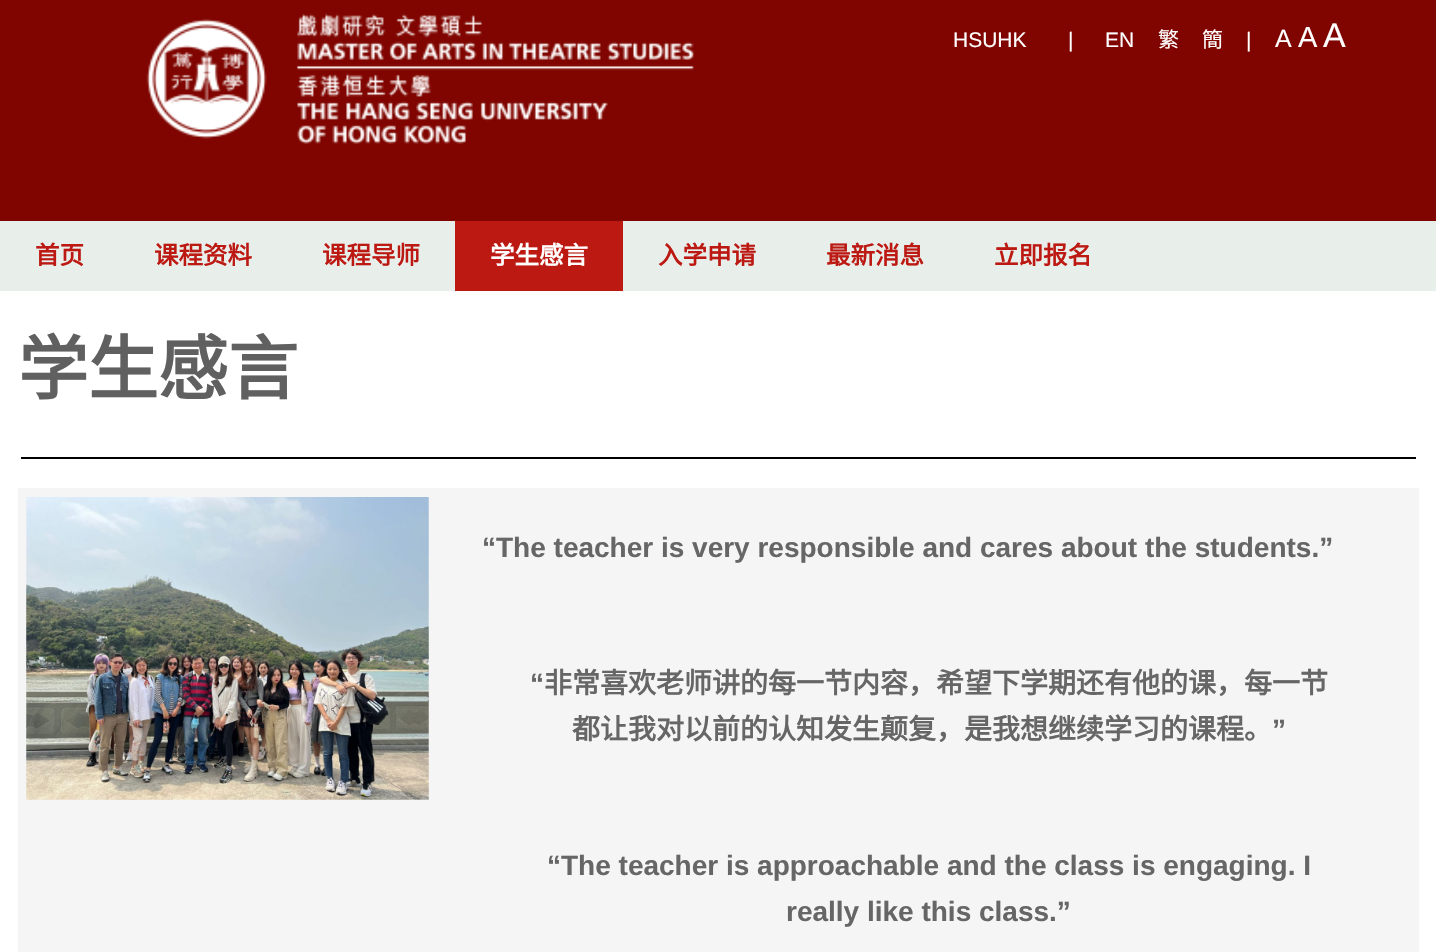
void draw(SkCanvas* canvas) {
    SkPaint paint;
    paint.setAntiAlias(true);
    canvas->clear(0xFF800500);
    canvas->drawImageRect(SkImages::DeferredFromEncodedData(SkData::MakeFromFileName("img1.png")), SkRect::MakeXYWH(146, 13, 548, 131), SkSamplingOptions());
    SkFont font1(fontMgr->matchFamilyStyle("Liberation Sans", SkFontStyle::Normal()), 21);
    font1.setSubpixel(true);
    paint.setColor(0xFFFFFFFF);
    canvas->drawString("HSUHK", 953, 47, font1, paint);
    canvas->drawString("|", 1068, 47, font1, paint);
    canvas->drawString("EN", 1105, 47, font1, paint);
    SkFont font2(fontMgr->matchFamilyStyle("Noto Sans CJK SC", SkFontStyle::Normal()), 21);
    font2.setSubpixel(true);
    canvas->drawString("繁", 1158, 47, font2, paint);
    canvas->drawString("簡", 1202, 47, font2, paint);
    canvas->drawString("|", 1246, 47, font1, paint);
    SkFont font3(fontMgr->matchFamilyStyle("Liberation Sans", SkFontStyle::Normal()), 25);
    font3.setSubpixel(true);
    canvas->drawString("A", 1275, 47, font3, paint);
    SkFont font4(fontMgr->matchFamilyStyle("Liberation Sans", SkFontStyle::Normal()), 29);
    font4.setSubpixel(true);
    canvas->drawString("A", 1298, 47, font4, paint);
    SkFont font5(fontMgr->matchFamilyStyle("Liberation Sans", SkFontStyle::Normal()), 34);
    font5.setSubpixel(true);
    canvas->drawString("A", 1323, 47, font5, paint);
    paint.setColor(0xFFE8EEEA);
    canvas->drawRect(SkRect::MakeXYWH(0, 221, 1436, 70), paint);
    SkFont font6(fontMgr->matchFamilyStyle("Noto Sans CJK SC", SkFontStyle::Bold()), 24.5f);
    font6.setSubpixel(true);
    paint.setColor(0xFFBD1913);
    canvas->drawString("首页", 35, 264, font6, paint);
    canvas->drawString("课程资料", 154, 264, font6, paint);
    canvas->drawString("课程导师", 322, 264, font6, paint);
    canvas->drawRect(SkRect::MakeXYWH(455, 221, 168, 70), paint);
    paint.setColor(0xFFFFFFFF);
    canvas->drawString("学生感言", 490, 264, font6, paint);
    paint.setColor(0xFFBD1913);
    canvas->drawString("入学申请", 658, 264, font6, paint);
    canvas->drawString("最新消息", 826, 264, font6, paint);
    canvas->drawString("立即报名", 994, 264, font6, paint);
    paint.setColor(0xFFFFFFFF);
    canvas->drawRect(SkRect::MakeXYWH(0, 291, 1436, 661), paint);
    SkFont font7(fontMgr->matchFamilyStyle("Noto Sans CJK SC", SkFontStyle::Bold()), 70);
    font7.setSubpixel(true);
    paint.setColor(0xFF606060);
    canvas->drawString("学生感言", 18, 394, font7, paint);
    paint.setColor(0xFF000000);
    canvas->drawRect(SkRect::MakeXYWH(21, 457, 1395, 2), paint);
    paint.setColor(0xFFF5F5F5);
    canvas->drawRect(SkRect::MakeXYWH(18, 488, 1401, 464), paint);
    canvas->drawImageRect(SkImages::DeferredFromEncodedData(SkData::MakeFromFileName("img2.png")), SkRect::MakeXYWH(26, 497, 403, 303), SkSamplingOptions());
    SkFont font8(fontMgr->matchFamilyStyle("Liberation Sans", SkFontStyle::Bold()), 28);
    font8.setSubpixel(true);
    paint.setColor(0xFF666666);
    canvas->drawString("“The teacher is very responsible and cares about the students.”", 482, 557, font8, paint);
    canvas->drawString("“", 530, 693, font8, paint);
    SkFont font9(fontMgr->matchFamilyStyle("Noto Sans CJK SC", SkFontStyle::Bold()), 28);
    font9.setSubpixel(true);
    canvas->drawString("非常喜欢老师讲的每一节内容，希望下学期还有他的课，每一节", 544, 693, font9, paint);
    canvas->drawString("都让我对以前的认知发生颠复，是我想继续学习的课程。", 572, 739, font9, paint);
    canvas->drawString("”", 1272, 739, font8, paint);
    canvas->drawString("“The teacher is approachable and the class is engaging. I", 547, 875, font8, paint);
    canvas->drawString("really like this class.”", 786, 921, font8, paint);
}
